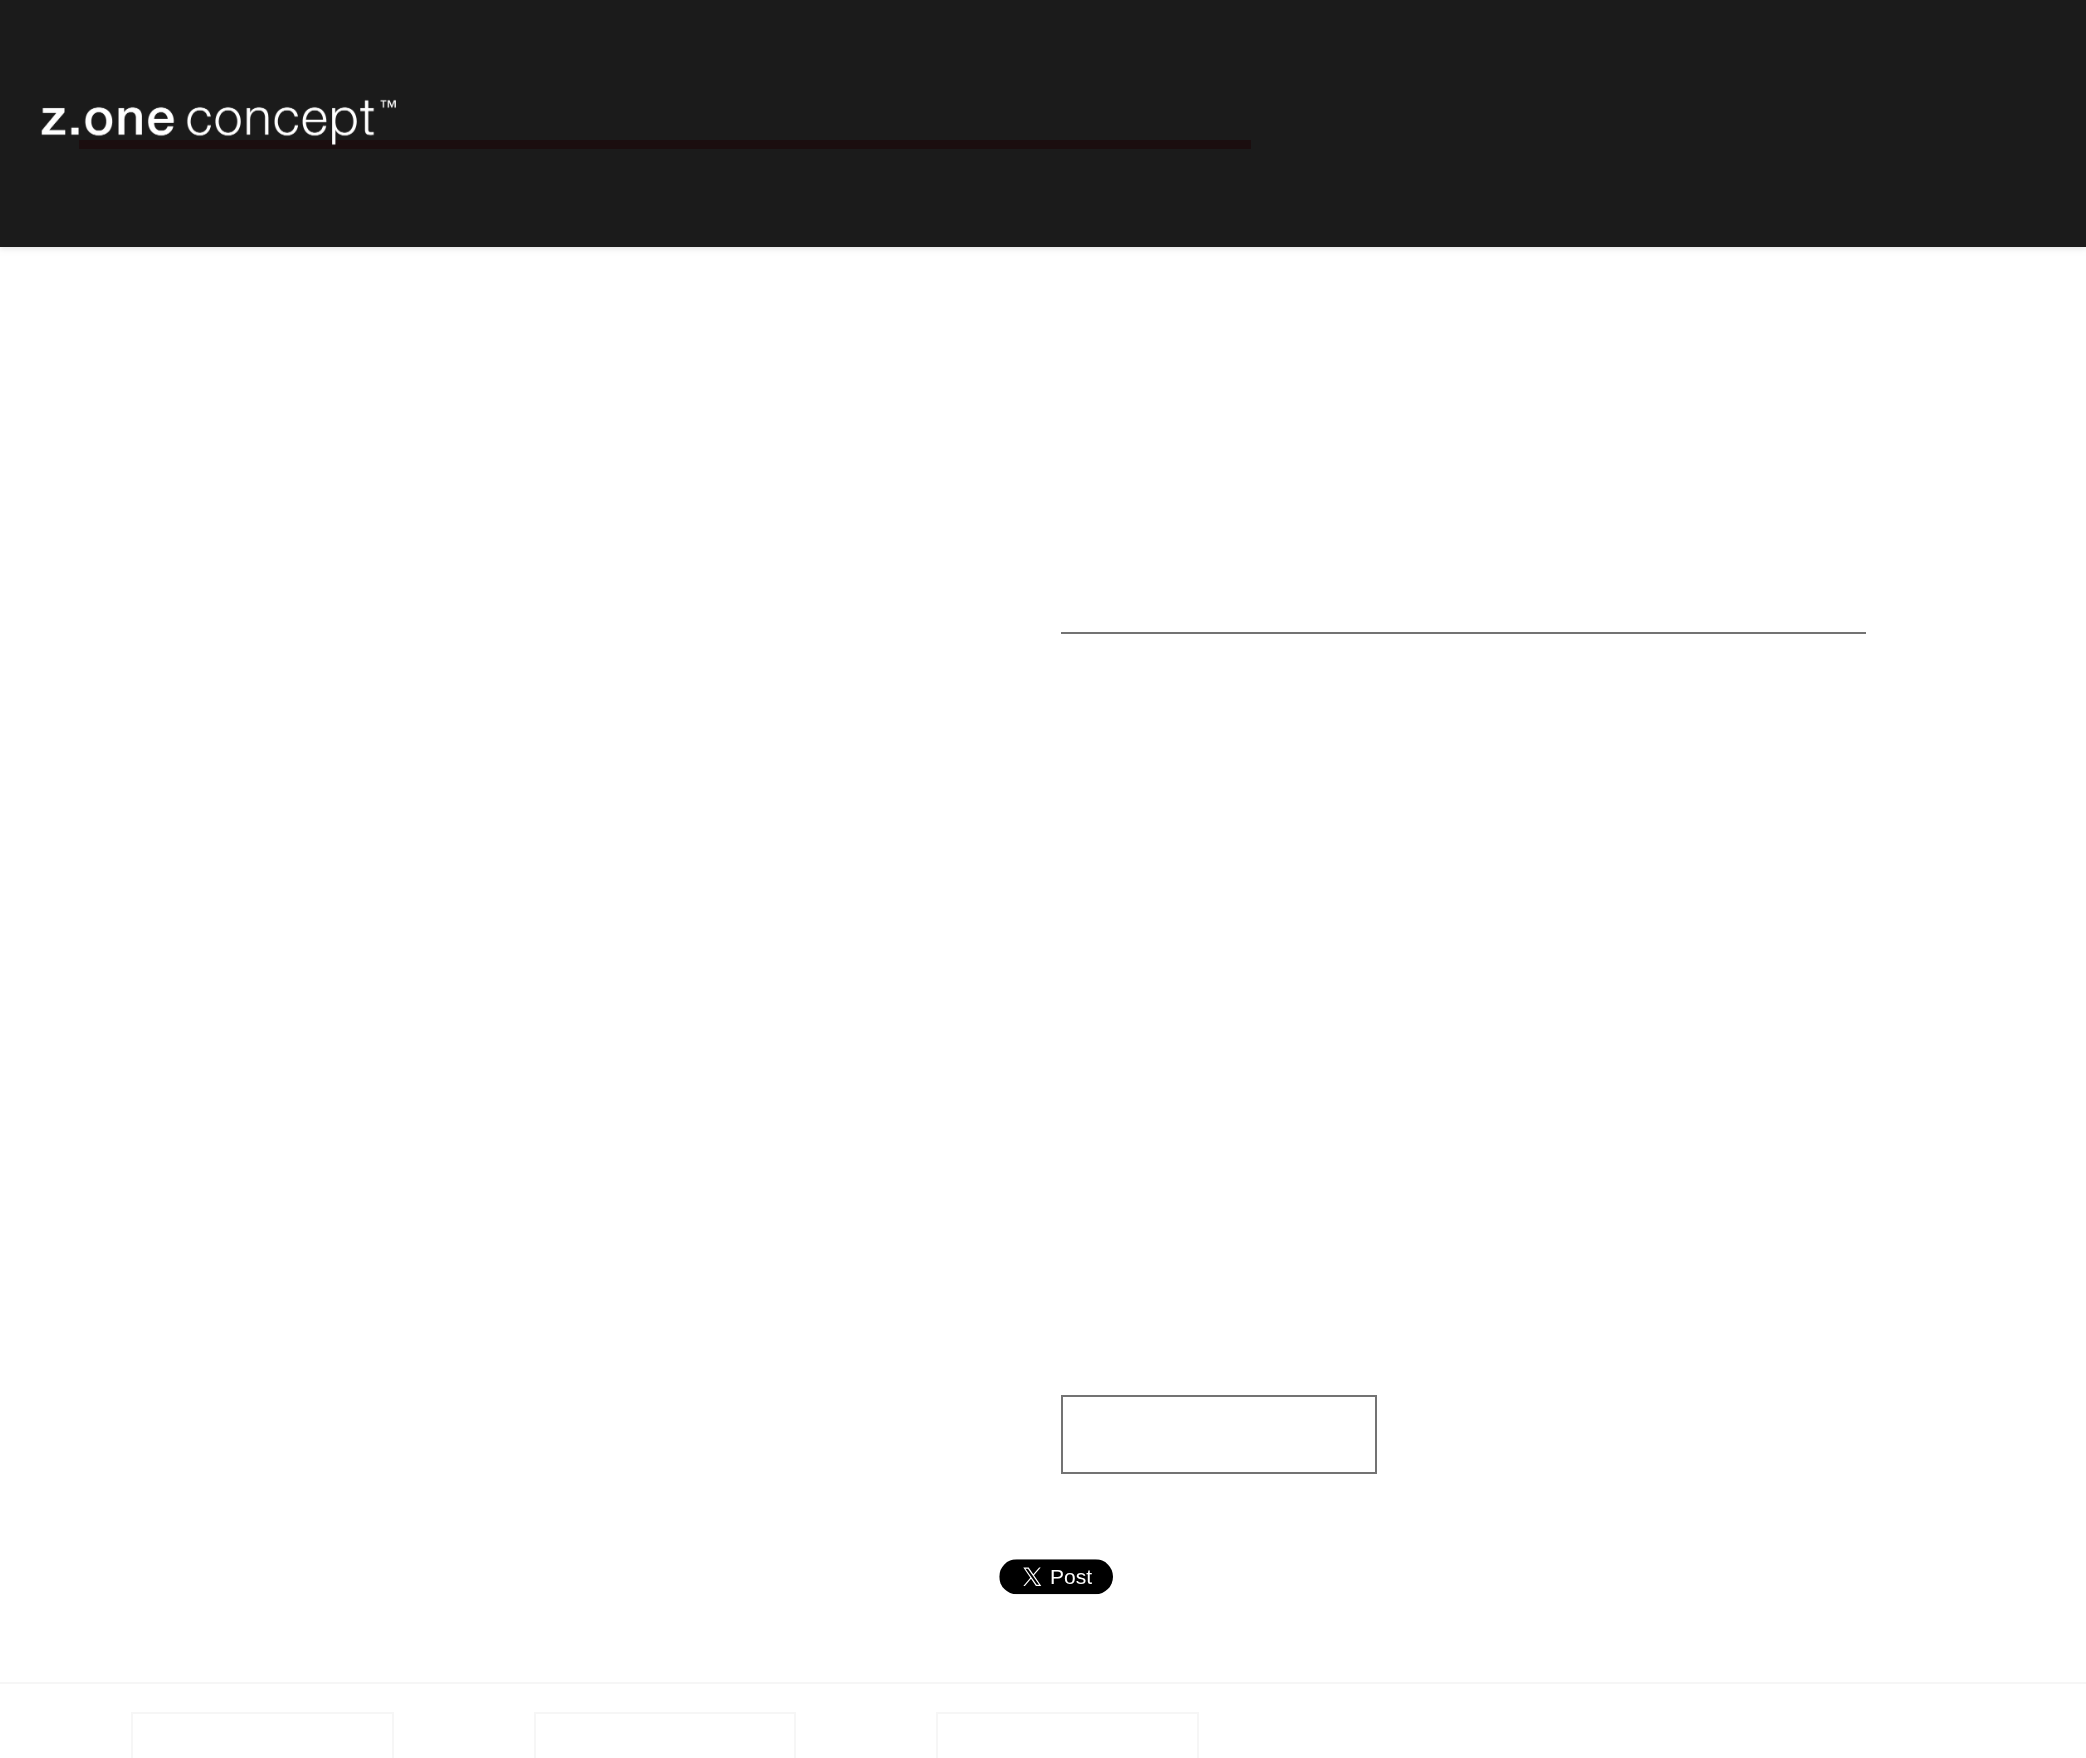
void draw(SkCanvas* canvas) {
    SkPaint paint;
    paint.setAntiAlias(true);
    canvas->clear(0xFFFFFFFF);
    paint.setColor(0xFFF6F6F6);
    canvas->drawRect(SkRect::MakeXYWH(0, 140, 2086, 105), paint);
    paint.setColor(0xFFFF0013);
    canvas->drawRect(SkRect::MakeXYWH(79, 140, 1172, 9), paint);
    canvas->save();
    canvas->clipPath(SkPathBuilder(SkPathFillType::kEvenOdd).moveTo(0, 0).lineTo(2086, 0).lineTo(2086, 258).lineTo(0, 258).close().moveTo(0, 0).lineTo(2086, 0).lineTo(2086, 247).lineTo(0, 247).close().detach(), true);
    paint.setColor(0x1A000000);
    paint.setMaskFilter(SkMaskFilter::MakeBlur(kNormal_SkBlurStyle, 2.5f));
    canvas->drawRect(SkRect::MakeXYWH(0, 2, 2086, 247), paint);
    paint.setMaskFilter(nullptr);
    canvas->restore();
    paint.setColor(0xF20F0F0F);
    canvas->drawRect(SkRect::MakeXYWH(0, 0, 2086, 247), paint);
    canvas->drawImageRect(SkImages::DeferredFromEncodedData(SkData::MakeFromFileName("img1.png")), SkRect::MakeXYWH(41, 99, 355, 47), SkSamplingOptions());
    paint.setColor(0xFF737373);
    canvas->drawRect(SkRect::MakeXYWH(1061, 632, 805, 2), paint);
    paint.setStyle(SkPaint::kStroke_Style);
    paint.setStrokeWidth(2);
    canvas->drawRect(SkRect::MakeXYWH(1062, 1396, 314, 77), paint);
    canvas->drawImageRect(SkImages::DeferredFromEncodedData(SkData::MakeFromFileName("img2.png")), SkRect::MakeXYWH(999, 1559, 114, 36), SkSamplingOptions());
    paint.setStyle(SkPaint::kFill_Style);
    paint.setColor(0xFFF6F6F6);
    canvas->drawRect(SkRect::MakeXYWH(0, 1682, 2086, 2), paint);
    paint.setStyle(SkPaint::kStroke_Style);
    canvas->drawRect(SkRect::MakeXYWH(132, 1713, 261, 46), paint);
    canvas->drawRect(SkRect::MakeXYWH(535, 1713, 260, 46), paint);
    canvas->drawRect(SkRect::MakeXYWH(937, 1713, 261, 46), paint);
}
